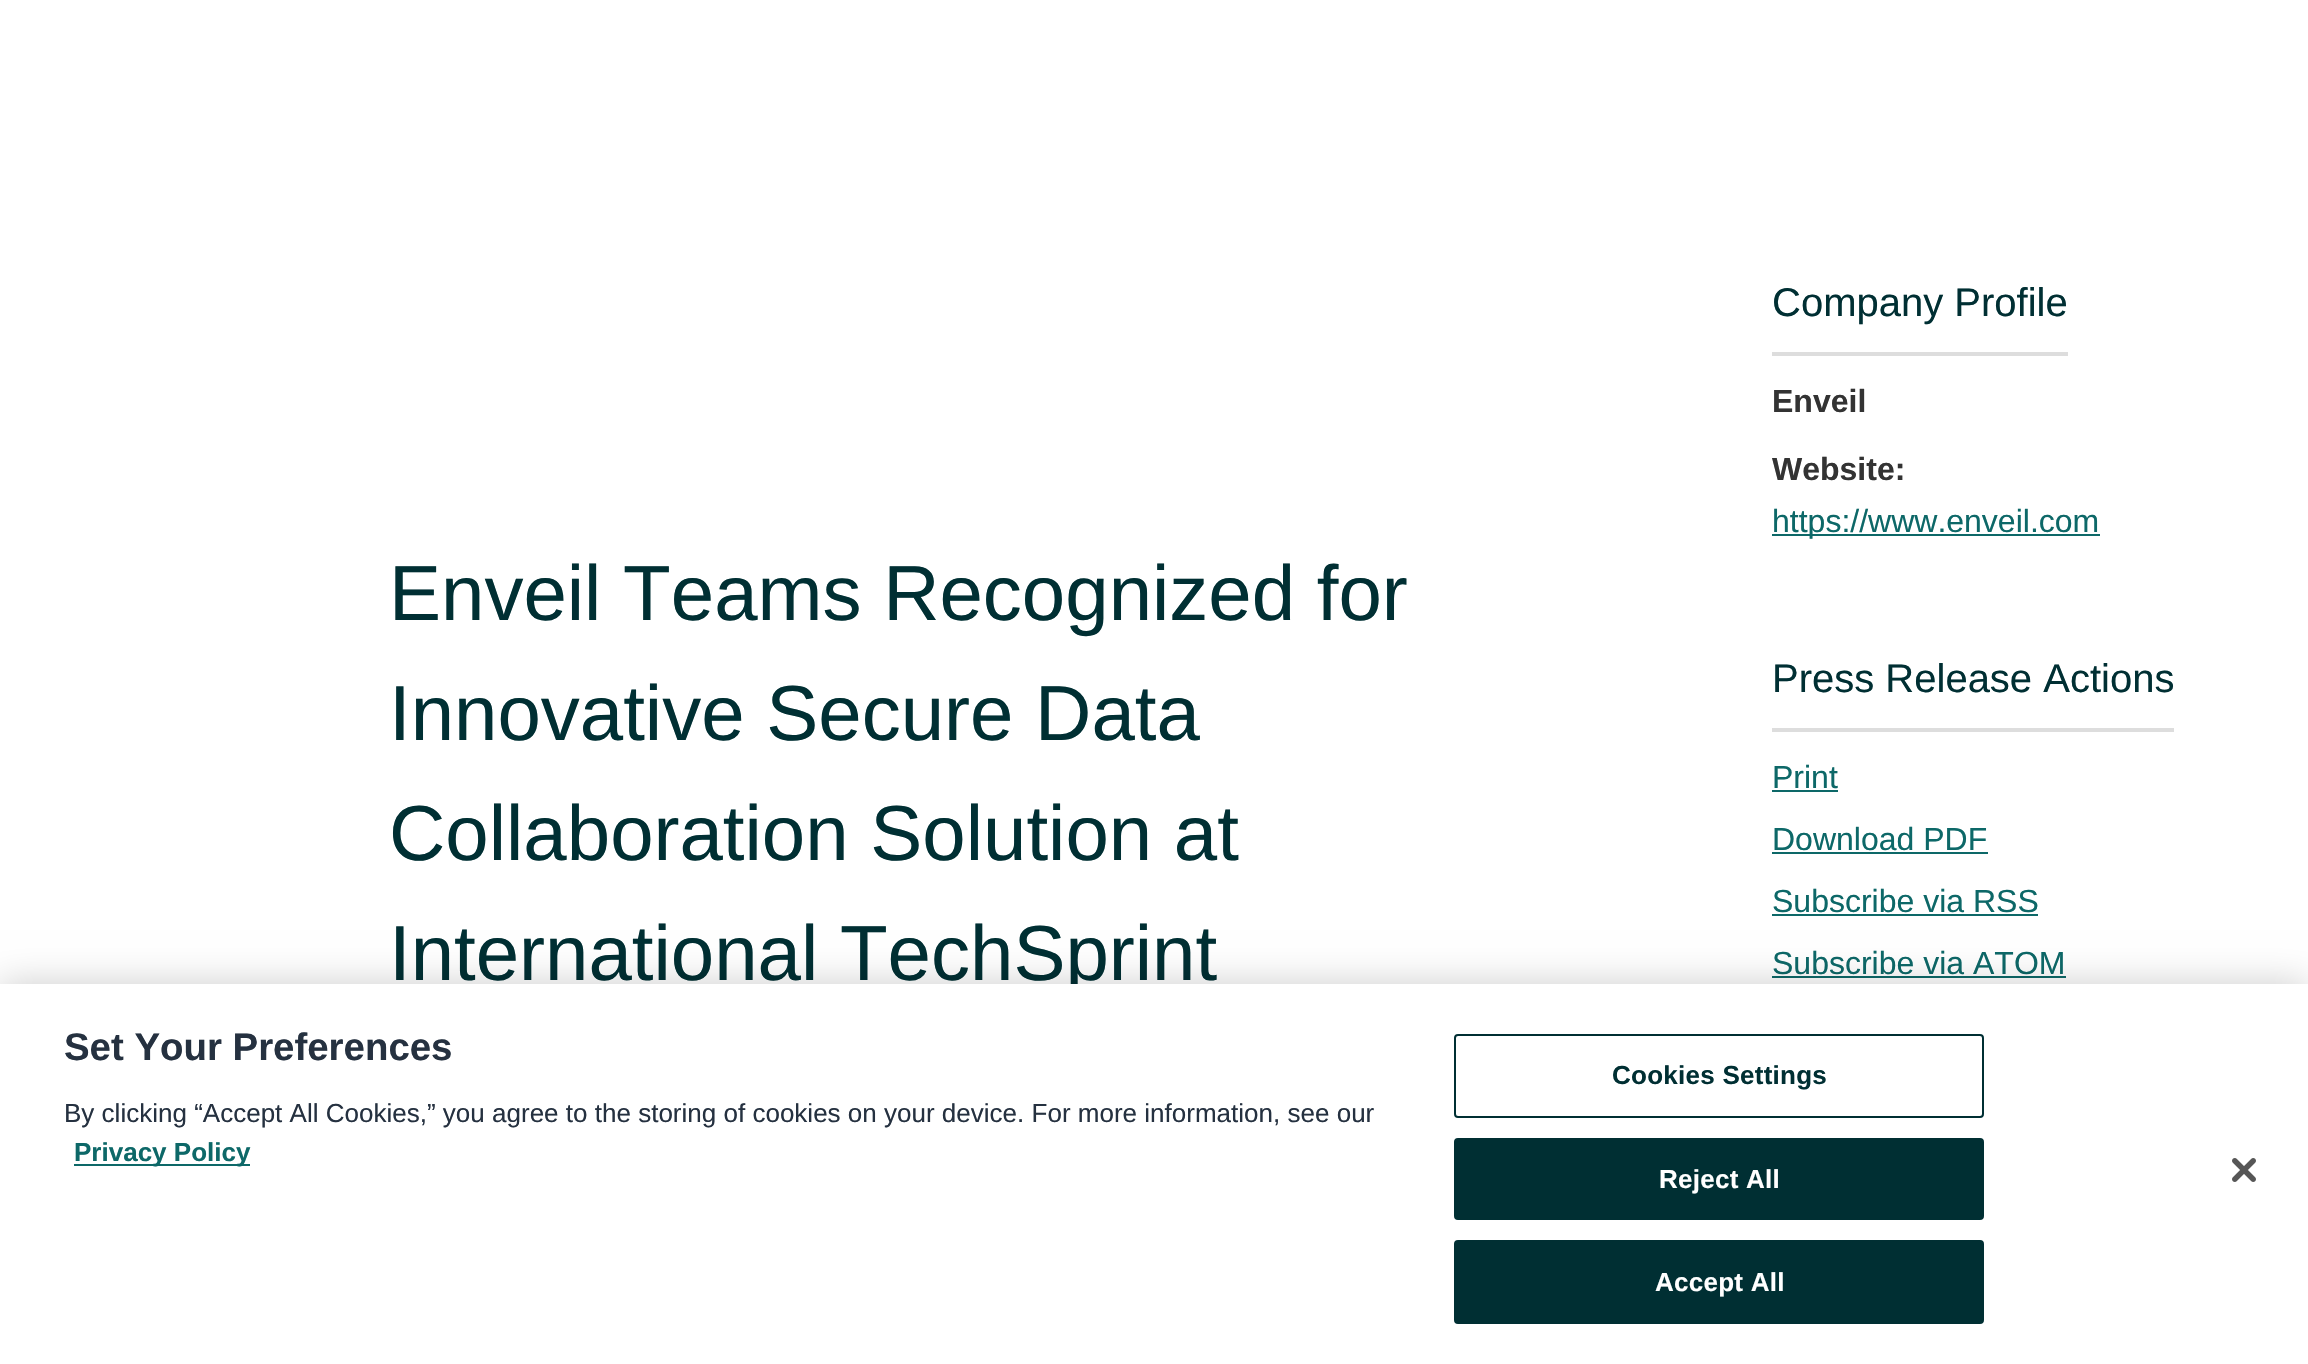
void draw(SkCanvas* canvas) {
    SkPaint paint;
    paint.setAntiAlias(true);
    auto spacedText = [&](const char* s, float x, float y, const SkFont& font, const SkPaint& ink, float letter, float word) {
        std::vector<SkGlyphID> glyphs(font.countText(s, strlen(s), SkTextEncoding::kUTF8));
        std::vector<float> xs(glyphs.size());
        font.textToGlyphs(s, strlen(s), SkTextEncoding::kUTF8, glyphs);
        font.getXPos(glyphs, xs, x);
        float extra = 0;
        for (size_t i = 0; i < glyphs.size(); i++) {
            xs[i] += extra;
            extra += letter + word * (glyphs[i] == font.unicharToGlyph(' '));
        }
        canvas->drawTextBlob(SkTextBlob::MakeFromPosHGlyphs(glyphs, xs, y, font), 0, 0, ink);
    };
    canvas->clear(0xFFFFFFFF);
    SkFont font1(fontMgr->matchFamilyStyle("Liberation Sans", SkFontStyle::Normal()), 78);
    font1.setSubpixel(true);
    paint.setColor(0xFF002F33);
    canvas->drawString("Enveil Teams Recognized for", 389, 620, font1, paint);
    canvas->drawString("Innovative Secure Data", 389, 740, font1, paint);
    canvas->drawString("Collaboration Solution at", 389, 860, font1, paint);
    canvas->drawString("International TechSprint", 389, 980, font1, paint);
    paint.setColor(0xFFDDDDDD);
    canvas->drawRect(SkRect::MakeXYWH(1772, 352, 296, 4), paint);
    SkFont font2(fontMgr->matchFamilyStyle("Liberation Sans", SkFontStyle::Normal()), 40);
    font2.setSubpixel(true);
    paint.setColor(0xFF002F33);
    canvas->drawString("Company Profile", 1772, 316, font2, paint);
    SkFont font3(fontMgr->matchFamilyStyle("Liberation Sans", SkFontStyle::Bold()), 32);
    font3.setSubpixel(true);
    paint.setColor(0xFF333333);
    canvas->drawString("Enveil", 1772, 412, font3, paint);
    canvas->drawString("Website:", 1772, 480, font3, paint);
    paint.setColor(0xFF0D6868);
    canvas->drawRect(SkRect::MakeXYWH(1772, 534, 328, 2), paint);
    SkFont font4(fontMgr->matchFamilyStyle("Liberation Sans", SkFontStyle::Normal()), 32);
    font4.setSubpixel(true);
    canvas->drawString("https://www.enveil.com", 1772, 532, font4, paint);
    paint.setColor(0xFFDDDDDD);
    canvas->drawRect(SkRect::MakeXYWH(1772, 728, 402, 4), paint);
    paint.setColor(0xFF002F33);
    canvas->drawString("Press Release Actions", 1772, 692, font2, paint);
    paint.setColor(0xFF0D6868);
    canvas->drawString("Print", 1772, 788, font4, paint);
    canvas->drawRect(SkRect::MakeXYWH(1772, 790, 66, 2), paint);
    canvas->drawString("Download PDF", 1772, 850, font4, paint);
    canvas->drawRect(SkRect::MakeXYWH(1772, 852, 216, 2), paint);
    canvas->drawString("Subscribe via RSS", 1772, 912, font4, paint);
    canvas->drawRect(SkRect::MakeXYWH(1772, 914, 266, 2), paint);
    canvas->drawString("Subscribe via ATOM", 1772, 974, font4, paint);
    canvas->drawRect(SkRect::MakeXYWH(1772, 976, 294, 2), paint);
    paint.setColor(0x33000000);
    paint.setMaskFilter(SkMaskFilter::MakeBlur(kNormal_SkBlurStyle, 18));
    canvas->drawRect(SkRect::MakeXYWH(0, 984, 2308, 380), paint);
    paint.setMaskFilter(nullptr);
    paint.setColor(0xFFFFFFFF);
    canvas->drawRect(SkRect::MakeXYWH(0, 984, 2308, 380), paint);
    SkFont font5(fontMgr->matchFamilyStyle("Liberation Sans", SkFontStyle::Bold()), 38.4f);
    font5.setSubpixel(true);
    paint.setColor(0xFF253140);
    canvas->drawString("Set Your Preferences", 64, 1060, font5, paint);
    SkFont font6(fontMgr->matchFamilyStyle("Liberation Sans", SkFontStyle::Normal()), 26.02f);
    font6.setSubpixel(true);
    canvas->drawString("By clicking “Accept All Cookies,” you agree to the storing of cookies on your device. For more information, see our", 64, 1122, font6, paint);
    paint.setColor(0xFF0D6868);
    canvas->drawRect(SkRect::MakeXYWH(74, 1164, 176, 2), paint);
    SkFont font7(fontMgr->matchFamilyStyle("Liberation Sans", SkFontStyle::Bold()), 26.02f);
    font7.setSubpixel(true);
    canvas->drawString("Privacy Policy", 74, 1161, font7, paint);
    paint.setStyle(SkPaint::kStroke_Style);
    paint.setStrokeWidth(2);
    paint.setColor(0xFF002F33);
    canvas->drawRoundRect(SkRect::MakeXYWH(1455, 1035, 528, 82), 3, 3, paint);
    paint.setStyle(SkPaint::kFill_Style);
    spacedText("Cookies Settings", 1612, 1084, font7, paint, 0.25f, 0);
    canvas->drawRoundRect(SkRect::MakeXYWH(1455, 1139, 528, 80), 3, 3, paint);
    paint.setStyle(SkPaint::kStroke_Style);
    canvas->drawRoundRect(SkRect::MakeXYWH(1455, 1139, 528, 80), 3, 3, paint);
    paint.setStyle(SkPaint::kFill_Style);
    paint.setColor(0xFFFFFFFF);
    spacedText("Reject All", 1659, 1188, font7, paint, 0.25f, 0);
    paint.setColor(0xFF002F33);
    canvas->drawRoundRect(SkRect::MakeXYWH(1455, 1241, 528, 82), 3, 3, paint);
    paint.setStyle(SkPaint::kStroke_Style);
    canvas->drawRoundRect(SkRect::MakeXYWH(1455, 1241, 528, 82), 3, 3, paint);
    paint.setStyle(SkPaint::kFill_Style);
    paint.setColor(0xFFFFFFFF);
    spacedText("Accept All", 1655, 1291, font7, paint, 0.25f, 0);
    canvas->drawImageRect(SkImages::DeferredFromEncodedData(SkData::MakeFromFileName("img1.png")), SkRect::MakeXYWH(2232, 1158, 24, 24), SkSamplingOptions());
}
